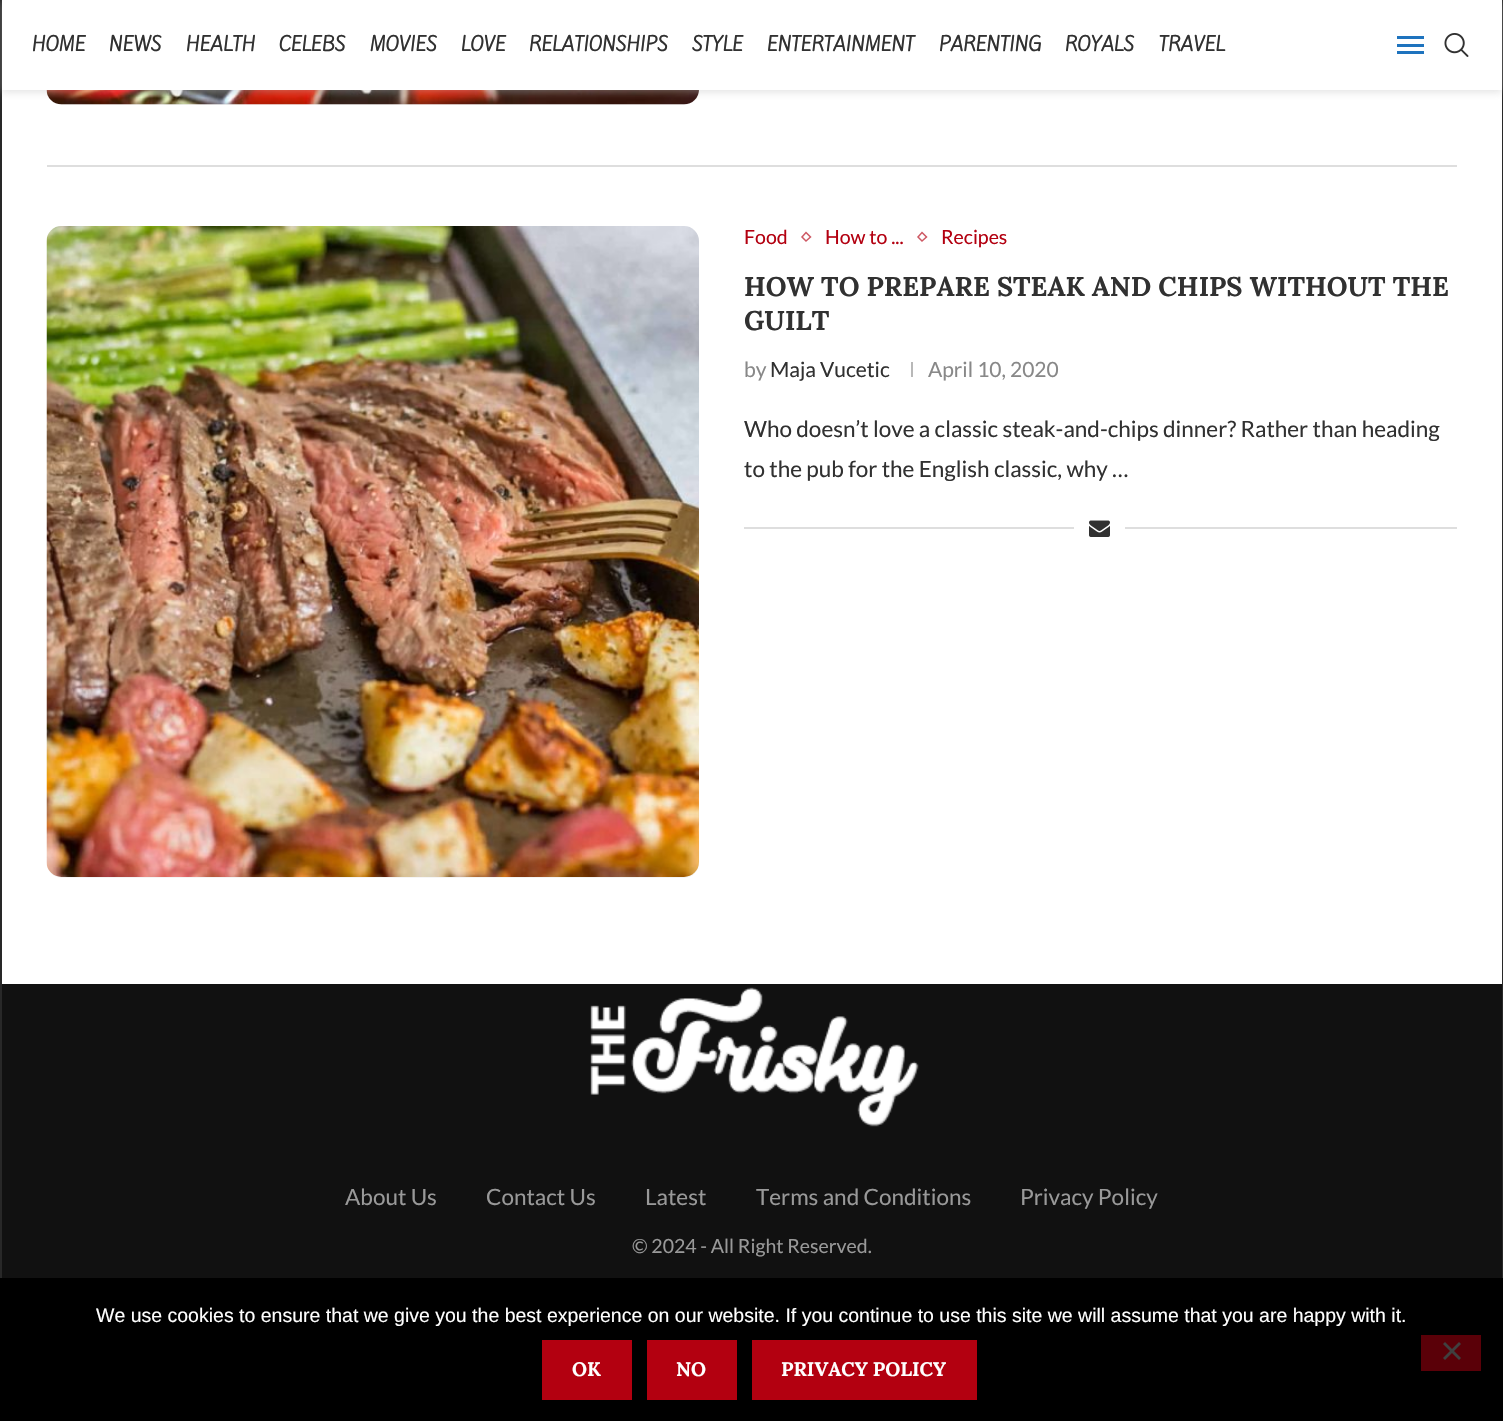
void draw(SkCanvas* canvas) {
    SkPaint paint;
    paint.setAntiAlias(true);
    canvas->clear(0xFF282828);
    paint.setColor(0xFFFFFFFF);
    canvas->drawRect(SkRect::MakeXYWH(2, 90, 1500, 894), paint);
    paint.setColor(0xFFF5F5F5);
    canvas->drawRoundRect(SkRect::MakeXYWH(47, -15, 652, 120), 15, 15, paint);
    canvas->drawImageRect(SkImages::DeferredFromEncodedData(SkData::MakeFromFileName("img2.png")), SkRect::MakeXYWH(46, 90, 653, 15), SkSamplingOptions());
    paint.setColor(0x75BEBEBE);
    paint.setMaskFilter(SkMaskFilter::MakeBlur(kNormal_SkBlurStyle, 4));
    canvas->drawRect(SkRect::MakeXYWH(2, 2, 1500, 90), paint);
    paint.setMaskFilter(nullptr);
    paint.setColor(0xFFFFFFFF);
    canvas->drawRect(SkRect::MakeXYWH(2, 0, 1500, 90), paint);
    SkFont font1(fontMgr->matchFamilyStyle("Kite One", SkFontStyle::Bold()), 18);
    font1.setSubpixel(true);
    paint.setColor(0xFF313131);
    canvas->drawString("HOME", 32, 51, font1, paint);
    canvas->drawString("NEWS", 109, 51, font1, paint);
    canvas->drawString("HEALTH", 186, 51, font1, paint);
    canvas->drawString("CELEBS", 279, 51, font1, paint);
    canvas->drawString("MOVIES", 370, 51, font1, paint);
    canvas->drawString("LOVE", 461, 51, font1, paint);
    canvas->drawString("RELATIONSHIPS", 529, 51, font1, paint);
    canvas->drawString("STYLE", 692, 51, font1, paint);
    canvas->drawString("ENTERTAINMENT", 767, 51, font1, paint);
    canvas->drawString("PARENTING", 939, 51, font1, paint);
    canvas->drawString("ROYALS", 1065, 51, font1, paint);
    canvas->drawString("TRAVEL", 1159, 51, font1, paint);
    paint.setColor(0xFF1E73BE);
    canvas->drawRect(SkRect::MakeXYWH(1397, 36, 27, 3), paint);
    canvas->drawRect(SkRect::MakeXYWH(1397, 51, 27, 3), paint);
    canvas->drawRect(SkRect::MakeXYWH(1397, 44, 27, 3), paint);
    canvas->drawImageRect(SkImages::DeferredFromEncodedData(SkData::MakeFromFileName("img1.png")), SkRect::MakeXYWH(1444, 33, 25, 24), SkSamplingOptions());
    paint.setColor(0xFFDEDEDE);
    canvas->drawRect(SkRect::MakeXYWH(47, 165, 1410, 2), paint);
    paint.setColor(0xFFF5F5F5);
    canvas->drawRoundRect(SkRect::MakeXYWH(47, 227, 652, 651), 15, 15, paint);
    canvas->drawImageRect(SkImages::DeferredFromEncodedData(SkData::MakeFromFileName("img3.png")), SkRect::MakeXYWH(46, 226, 653, 651), SkSamplingOptions());
    SkFont font2(fontMgr->matchFamilyStyle("Lato", SkFontStyle::Normal()), 19.5f);
    font2.setSubpixel(true);
    paint.setColor(0xFFB30010);
    canvas->drawString("Food", 744, 244, font2, paint);
    paint.setStyle(SkPaint::kStroke_Style);
    paint.setStrokeWidth(1.5f);
    paint.setColor(0xFFCE5964);
    canvas->drawPath(SkPathBuilder().moveTo(806, 232.5f).lineTo(810.5f, 237).lineTo(806, 241).lineTo(802, 237).close().detach(), paint);
    paint.setStyle(SkPaint::kFill_Style);
    paint.setColor(0xFFB30010);
    canvas->drawString("How to ...", 825, 244, font2, paint);
    paint.setStyle(SkPaint::kStroke_Style);
    paint.setColor(0xFFCE5964);
    canvas->drawPath(SkPathBuilder().moveTo(922, 232.5f).lineTo(926.5f, 237).lineTo(922, 241).lineTo(918, 237).close().detach(), paint);
    paint.setStyle(SkPaint::kFill_Style);
    paint.setColor(0xFFB30010);
    canvas->drawString("Recipes", 941, 244, font2, paint);
    SkFont font3(fontMgr->matchFamilyStyle("Lora", SkFontStyle::Bold()), 27);
    font3.setSubpixel(true);
    paint.setColor(0xFF313131);
    canvas->drawString("HOW TO PREPARE STEAK AND CHIPS WITHOUT THE", 744, 296, font3, paint);
    canvas->drawString("GUILT", 744, 330, font3, paint);
    SkFont font4(fontMgr->matchFamilyStyle("Lato", SkFontStyle::Normal()), 21);
    font4.setSubpixel(true);
    paint.setColor(0xFF888888);
    canvas->drawString("by", 744, 377, font4, paint);
    paint.setColor(0xFF313131);
    canvas->drawString("Maja Vucetic", 770, 377, font4, paint);
    paint.setColor(0xFFB8B8B8);
    canvas->drawRect(SkRect::MakeXYWH(911, 362, 2, 15), paint);
    paint.setColor(0xFF888888);
    canvas->drawString("April 10, 2020", 928, 377, font4, paint);
    SkFont font5(fontMgr->matchFamilyStyle("Lato", SkFontStyle::Normal()), 22.5f);
    font5.setSubpixel(true);
    paint.setColor(0xFF313131);
    canvas->drawString("Who doesn’t love a classic steak-and-chips dinner? Rather than heading", 744, 437, font5, paint);
    canvas->drawString("to the pub for the English classic, why …", 744, 477, font5, paint);
    paint.setColor(0xFFDEDEDE);
    canvas->drawRect(SkRect::MakeXYWH(744, 527, 713, 2), paint);
    paint.setColor(0xFFFFFFFF);
    canvas->drawRect(SkRect::MakeXYWH(1074, 527, 51, 2), paint);
    canvas->drawImageRect(SkImages::DeferredFromEncodedData(SkData::MakeFromFileName("img4.png")), SkRect::MakeXYWH(1089, 520, 21, 17), SkSamplingOptions());
    paint.setColor(0xFF111111);
    canvas->drawRect(SkRect::MakeXYWH(2, 984, 1500, 294), paint);
    canvas->drawImageRect(SkImages::DeferredFromEncodedData(SkData::MakeFromFileName("img5.png")), SkRect::MakeXYWH(590, 987, 329, 140), SkSamplingOptions());
    paint.setColor(0xFF999999);
    canvas->drawString("About Us", 345, 1205, font5, paint);
    canvas->drawString("Contact Us", 486, 1205, font5, paint);
    canvas->drawString("Latest", 645, 1205, font5, paint);
    canvas->drawString("Terms and Conditions", 756, 1205, font5, paint);
    canvas->drawString("Privacy Policy", 1020, 1205, font5, paint);
    canvas->drawString("© 2024 - All Right Reserved.", 632, 1253, font2, paint);
    paint.setColor(0xFF000000);
    canvas->drawRect(SkRect::MakeXYWH(0, 1278, 1503, 143), paint);
    SkFont font6(fontMgr->matchFamilyStyle("Liberation Sans", SkFontStyle::Normal()), 19.5f);
    font6.setSubpixel(true);
    paint.setColor(0xFFFFFFFF);
    canvas->drawString("We use cookies to ensure that we give you the best experience on our website. If you continue to use this site we will assume that you are happy with it.", 96, 1322, font6, paint);
    paint.setColor(0xFFB30010);
    canvas->drawRect(SkRect::MakeXYWH(542, 1340, 90, 60), paint);
    SkFont font7(fontMgr->matchFamilyStyle("Lora", SkFontStyle::Bold()), 19.5f);
    font7.setSubpixel(true);
    paint.setColor(0xFFFFFFFF);
    canvas->drawString("OK", 572, 1376, font7, paint);
    paint.setColor(0xFFB30010);
    canvas->drawRect(SkRect::MakeXYWH(647, 1340, 90, 60), paint);
    paint.setColor(0xFFFFFFFF);
    canvas->drawString("NO", 676, 1376, font7, paint);
    paint.setColor(0xFFB30010);
    canvas->drawRect(SkRect::MakeXYWH(752, 1340, 225, 60), paint);
    paint.setColor(0xFFFFFFFF);
    canvas->drawString("PRIVACY POLICY", 781, 1376, font7, paint);
    paint.setColor(0xFF5A0008);
    canvas->drawRect(SkRect::MakeXYWH(1421, 1335, 60, 36), paint);
    paint.setColor(0xFF404040);
    canvas->drawPath(SkPathBuilder().moveTo(1459, 1342).lineTo(1461, 1344).lineTo(1445, 1360).lineTo(1443, 1358).close().detach(), paint);
    canvas->drawPath(SkPathBuilder().moveTo(1443, 1344).lineTo(1445, 1342).lineTo(1461, 1358).lineTo(1459, 1360).close().detach(), paint);
}
